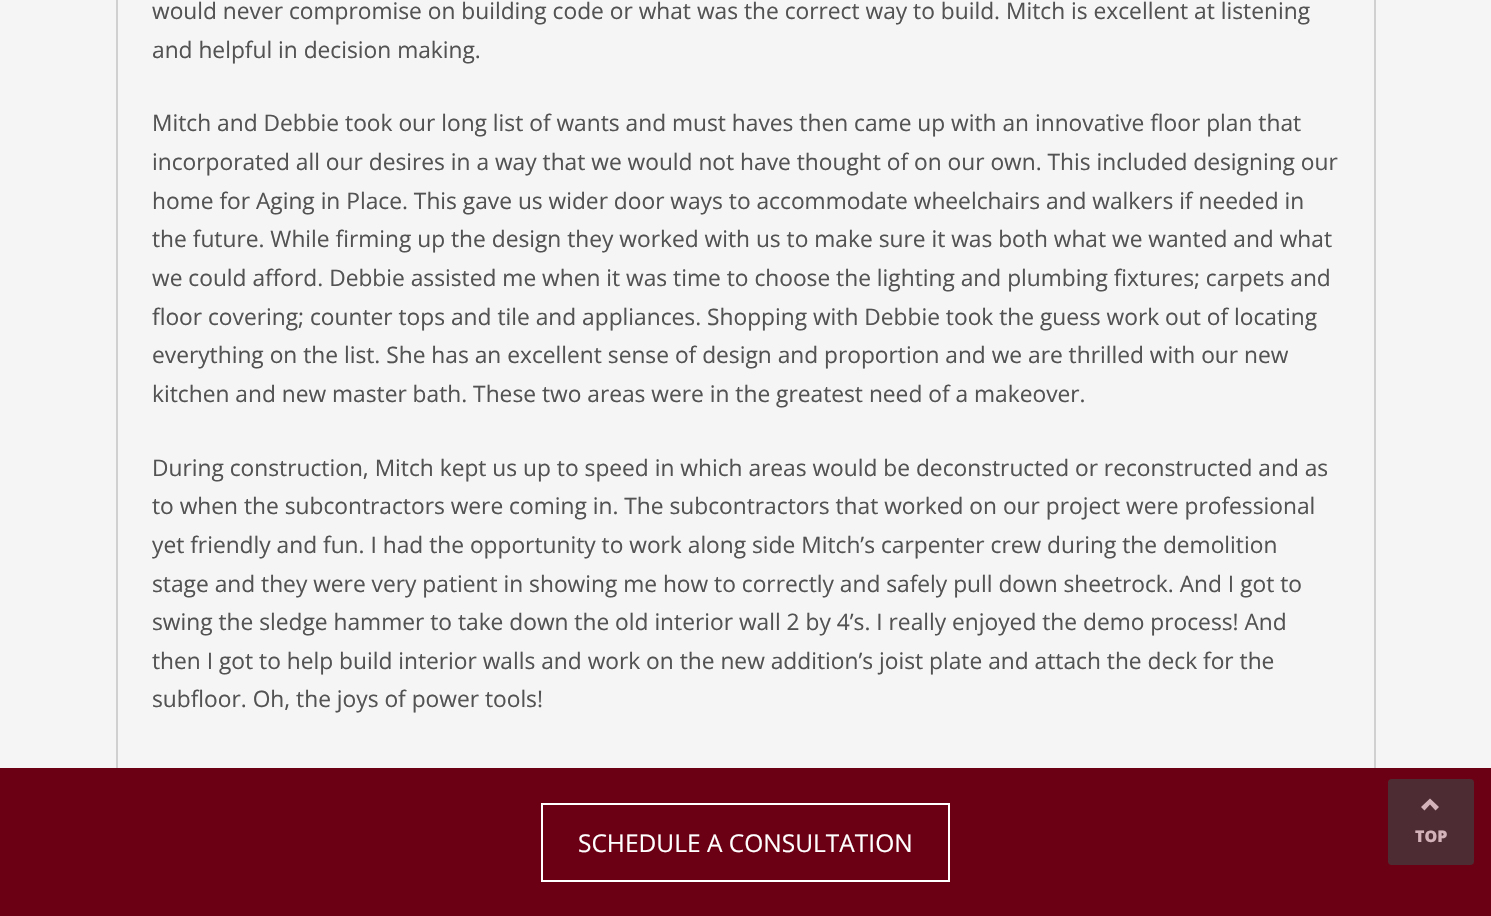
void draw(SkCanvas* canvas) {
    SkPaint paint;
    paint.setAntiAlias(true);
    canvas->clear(0xFFF5F5F5);
    paint.setStyle(SkPaint::kStroke_Style);
    paint.setStrokeWidth(2);
    paint.setColor(0xFFD0D0D0);
    canvas->drawRect(SkRect::MakeXYWH(117, -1, 1258, 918), paint);
    SkFont font1(fontMgr->matchFamilyStyle("Open Sans", SkFontStyle::Normal()), 22.75f);
    font1.setSubpixel(true);
    paint.setStyle(SkPaint::kFill_Style);
    paint.setColor(0xFF535353);
    canvas->drawString("would never compromise on building code or what was the correct way to build. Mitch is excellent at listening", 152, 19, font1, paint);
    canvas->drawString("and helpful in decision making.", 152, 58, font1, paint);
    canvas->drawString("Mitch and Debbie took our long list of wants and must haves then came up with an innovative floor plan that", 152, 131, font1, paint);
    canvas->drawString("incorporated all our desires in a way that we would not have thought of on our own. This included designing our", 152, 170, font1, paint);
    canvas->drawString("home for Aging in Place. This gave us wider door ways to accommodate wheelchairs and walkers if needed in", 152, 209, font1, paint);
    canvas->drawString("the future. While firming up the design they worked with us to make sure it was both what we wanted and what", 152, 247, font1, paint);
    canvas->drawString("we could afford. Debbie assisted me when it was time to choose the lighting and plumbing fixtures; carpets and", 152, 286, font1, paint);
    canvas->drawString("floor covering; counter tops and tile and appliances. Shopping with Debbie took the guess work out of locating", 152, 325, font1, paint);
    canvas->drawString("everything on the list. She has an excellent sense of design and proportion and we are thrilled with our new", 152, 363, font1, paint);
    canvas->drawString("kitchen and new master bath. These two areas were in the greatest need of a makeover.", 152, 402, font1, paint);
    canvas->drawString("During construction, Mitch kept us up to speed in which areas would be deconstructed or reconstructed and as", 152, 476, font1, paint);
    canvas->drawString("to when the subcontractors were coming in. The subcontractors that worked on our project were professional", 152, 514, font1, paint);
    canvas->drawString("yet friendly and fun. I had the opportunity to work along side Mitch’s carpenter crew during the demolition", 152, 553, font1, paint);
    canvas->drawString("stage and they were very patient in showing me how to correctly and safely pull down sheetrock. And I got to", 152, 592, font1, paint);
    canvas->drawString("swing the sledge hammer to take down the old interior wall 2 by 4’s. I really enjoyed the demo process! And", 152, 630, font1, paint);
    canvas->drawString("then I got to help build interior walls and work on the new addition’s joist plate and attach the deck for the", 152, 669, font1, paint);
    canvas->drawString("subfloor. Oh, the joys of power tools!", 152, 707, font1, paint);
    paint.setColor(0xFF6B0015);
    canvas->drawRect(SkRect::MakeXYWH(0, 768, 1491, 148), paint);
    paint.setStyle(SkPaint::kStroke_Style);
    paint.setColor(0xFFFFFFFF);
    canvas->drawRect(SkRect::MakeXYWH(542, 804, 407, 77), paint);
    SkFont font2(fontMgr->matchFamilyStyle("Open Sans", SkFontStyle::Normal()), 24.5f);
    font2.setSubpixel(true);
    paint.setStyle(SkPaint::kFill_Style);
    canvas->drawString("SCHEDULE A CONSULTATION", 578, 852, font2, paint);
    paint.setColor(0xFF4D2D33);
    canvas->drawRoundRect(SkRect::MakeXYWH(1388, 779, 86, 86), 4, 4, paint);
    paint.setColor(0xFFD3B3B9);
    canvas->drawPath(SkPathBuilder().moveTo(1430, 798.5f).lineTo(1439, 807).lineTo(1435.5f, 810.5f).lineTo(1430, 804.5f).lineTo(1424.5f, 810.5f).lineTo(1421, 807).close().detach(), paint);
    SkFont font3(fontMgr->matchFamilyStyle("Open Sans", SkFontStyle(800, SkFontStyle::kNormal_Width, SkFontStyle::kUpright_Slant)), 16);
    font3.setSubpixel(true);
    canvas->drawString("TOP", 1415, 842, font3, paint);
}
